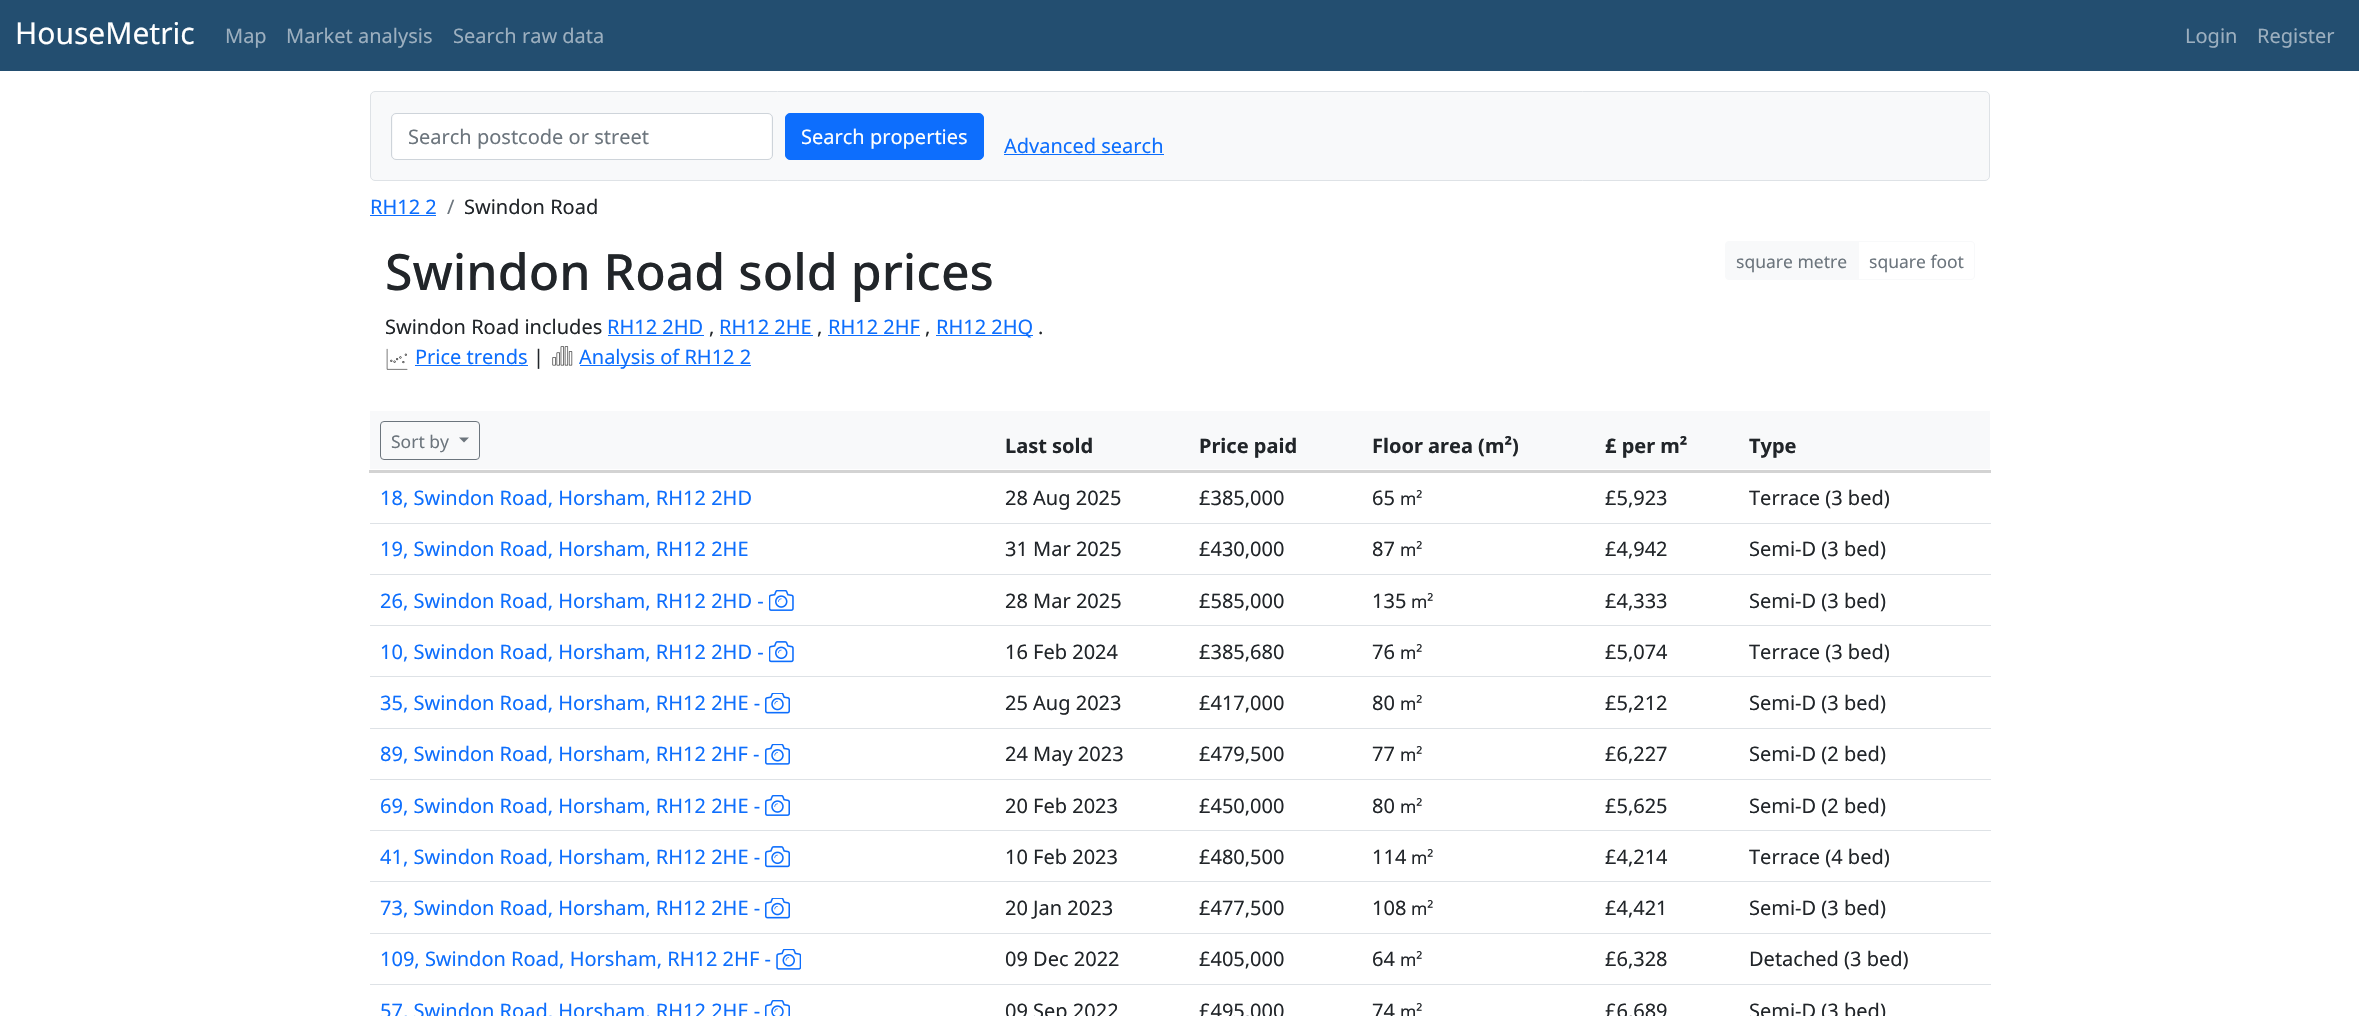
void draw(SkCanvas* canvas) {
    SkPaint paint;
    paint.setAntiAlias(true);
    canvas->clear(0xFFFFFFFF);
    paint.setColor(0xFF234E70);
    canvas->drawRect(SkRect::MakeXYWH(0, 0, 2359, 71), paint);
    SkFont font1(fontMgr->matchFamilyStyle("Noto Sans", SkFontStyle::Normal()), 30);
    font1.setSubpixel(true);
    paint.setColor(0xFFFFFFFF);
    canvas->drawString("HouseMetric", 15, 44, font1, paint);
    SkFont font2(fontMgr->matchFamilyStyle("Noto Sans", SkFontStyle::Normal()), 20);
    font2.setSubpixel(true);
    paint.setColor(0xFF9CAFBF);
    canvas->drawString("Map", 225, 43, font2, paint);
    canvas->drawString("Market analysis", 286, 43, font2, paint);
    canvas->drawString("Search raw data", 453, 43, font2, paint);
    canvas->drawString("Login", 2185, 43, font2, paint);
    canvas->drawString("Register", 2257, 43, font2, paint);
    paint.setColor(0xFFF8F9FA);
    canvas->drawRoundRect(SkRect::MakeXYWH(370.5f, 91.5f, 1619, 89), 4.5f, 4.5f, paint);
    paint.setStyle(SkPaint::kStroke_Style);
    paint.setStrokeWidth(1);
    paint.setColor(0xFFDEE2E6);
    canvas->drawRoundRect(SkRect::MakeXYWH(370.5f, 91.5f, 1619, 89), 4.5f, 4.5f, paint);
    paint.setStyle(SkPaint::kFill_Style);
    paint.setColor(0xFFFFFFFF);
    canvas->drawRoundRect(SkRect::MakeXYWH(393, 114, 378, 45), 4, 4, paint);
    paint.setStyle(SkPaint::kStroke_Style);
    paint.setColor(0xFFCED4DA);
    canvas->drawRoundRect(SkRect::MakeXYWH(391.5f, 113.5f, 381, 46), 4.5f, 4.5f, paint);
    paint.setStyle(SkPaint::kFill_Style);
    paint.setColor(0xFF6C757D);
    canvas->drawString("Search postcode or street", 408, 144, font2, paint);
    paint.setColor(0xFF0D6EFD);
    canvas->drawRoundRect(SkRect::MakeXYWH(785.5f, 113.5f, 198, 46), 4.5f, 4.5f, paint);
    paint.setStyle(SkPaint::kStroke_Style);
    canvas->drawRoundRect(SkRect::MakeXYWH(785.5f, 113.5f, 198, 46), 4.5f, 4.5f, paint);
    paint.setStyle(SkPaint::kFill_Style);
    paint.setColor(0xFFFFFFFF);
    canvas->drawString("Search properties", 801, 144, font2, paint);
    paint.setColor(0xFF0D6EFD);
    canvas->drawString("Advanced search", 1004, 153, font2, paint);
    canvas->drawRect(SkRect::MakeXYWH(1004, 154, 160, 1), paint);
    canvas->drawString("RH12 2", 370, 214, font2, paint);
    canvas->drawRect(SkRect::MakeXYWH(370, 215, 66, 1), paint);
    paint.setColor(0xFF6C757D);
    canvas->drawString("/", 447, 214, font2, paint);
    paint.setColor(0xFF212529);
    canvas->drawString("Swindon Road", 464, 214, font2, paint);
    SkFont font3(fontMgr->matchFamilyStyle("Noto Sans", SkFontStyle(500, SkFontStyle::kNormal_Width, SkFontStyle::kUpright_Slant)), 50);
    font3.setSubpixel(true);
    canvas->drawString("Swindon Road sold prices", 385, 290, font3, paint);
    canvas->drawString("Swindon Road includes", 385, 334, font2, paint);
    paint.setColor(0xFF0D6EFD);
    canvas->drawString("RH12 2HD", 607, 334, font2, paint);
    canvas->drawRect(SkRect::MakeXYWH(608, 335, 96, 1), paint);
    paint.setColor(0xFF212529);
    canvas->drawString(",", 709, 334, font2, paint);
    paint.setColor(0xFF0D6EFD);
    canvas->drawString("RH12 2HE", 719, 334, font2, paint);
    canvas->drawRect(SkRect::MakeXYWH(720, 335, 93, 1), paint);
    paint.setColor(0xFF212529);
    canvas->drawString(",", 817, 334, font2, paint);
    paint.setColor(0xFF0D6EFD);
    canvas->drawString("RH12 2HF", 828, 334, font2, paint);
    canvas->drawRect(SkRect::MakeXYWH(828, 335, 92, 1), paint);
    paint.setColor(0xFF212529);
    canvas->drawString(",", 925, 334, font2, paint);
    paint.setColor(0xFF0D6EFD);
    canvas->drawRect(SkRect::MakeXYWH(936, 335, 97, 1), paint);
    canvas->drawString("RH12 2HQ", 936, 334, font2, paint);
    paint.setColor(0xFF212529);
    canvas->drawString(".", 1038, 334, font2, paint);
    canvas->drawImageRect(SkImages::DeferredFromEncodedData(SkData::MakeFromFileName("img1.png")), SkRect::MakeXYWH(386, 348, 22, 22), SkSamplingOptions());
    paint.setColor(0xFF0D6EFD);
    canvas->drawString("Price trends", 415, 364, font2, paint);
    canvas->drawRect(SkRect::MakeXYWH(415, 365, 113, 1), paint);
    paint.setColor(0xFF212529);
    canvas->drawString("|", 533, 364, font2, paint);
    canvas->drawImageRect(SkImages::DeferredFromEncodedData(SkData::MakeFromFileName("img2.png")), SkRect::MakeXYWH(552, 346, 21, 20), SkSamplingOptions());
    paint.setColor(0xFF0D6EFD);
    canvas->drawRect(SkRect::MakeXYWH(580, 365, 171, 1), paint);
    canvas->drawString("Analysis of RH12 2", 579, 364, font2, paint);
    paint.setStyle(SkPaint::kStroke_Style);
    paint.setColor(0xFFF8F9FA);
    canvas->drawPath(SkPathBuilder().moveTo(1858.5f, 241.5f).lineTo(1971, 241.5f).cubicTo(1973, 241.5f, 1974.5f, 243, 1974.5f, 245).lineTo(1974.5f, 276).cubicTo(1974.5f, 278, 1973, 279.5f, 1971, 279.5f).lineTo(1858.5f, 279.5f).close().detach(), paint);
    paint.setStyle(SkPaint::kFill_Style);
    canvas->drawPath(SkPathBuilder().moveTo(1729, 241).lineTo(1859, 241).lineTo(1859, 280).lineTo(1729, 280).cubicTo(1727, 280, 1725, 278, 1725, 276).lineTo(1725, 245).cubicTo(1725, 243, 1727, 241, 1729, 241).close().detach(), paint);
    SkFont font4(fontMgr->matchFamilyStyle("Noto Sans", SkFontStyle::Normal()), 17.5f);
    font4.setSubpixel(true);
    paint.setColor(0xFF6C757D);
    canvas->drawString("square metre", 1736, 268, font4, paint);
    canvas->drawString("square foot", 1869, 268, font4, paint);
    paint.setColor(0xFFF8F9FA);
    canvas->drawRect(SkRect::MakeXYWH(370, 411, 1620, 58), paint);
    paint.setColor(0xFFD3D3D3);
    canvas->drawRect(SkRect::MakeXYWH(369, 470, 1622, 3), paint);
    paint.setStyle(SkPaint::kStroke_Style);
    paint.setColor(0xFF6C757D);
    canvas->drawRoundRect(SkRect::MakeXYWH(380.5f, 421.5f, 99, 38), 3.5f, 3.5f, paint);
    paint.setStyle(SkPaint::kFill_Style);
    canvas->drawString("Sort by", 391, 448, font4, paint);
    canvas->drawPath(SkPathBuilder().moveTo(459, 437.5f).lineTo(469, 437.5f).lineTo(464, 442.5f).close().detach(), paint);
    SkFont font5(fontMgr->matchFamilyStyle("Noto Sans", SkFontStyle::Bold()), 20);
    font5.setSubpixel(true);
    paint.setColor(0xFF212529);
    canvas->drawString("Last sold", 1005, 453, font5, paint);
    canvas->drawString("Price paid", 1199, 453, font5, paint);
    canvas->drawString("Floor area (m²)", 1372, 453, font5, paint);
    canvas->drawString("£ per m²", 1605, 453, font5, paint);
    canvas->drawString("Type", 1749, 453, font5, paint);
    paint.setColor(0xFF0D6EFD);
    canvas->drawString("18, Swindon Road, Horsham, RH12 2HD", 380, 505, font2, paint);
    paint.setColor(0xFF212529);
    canvas->drawString("28 Aug 2025", 1005, 505, font2, paint);
    canvas->drawString("£385,000", 1199, 505, font2, paint);
    canvas->drawString("65", 1372, 505, font2, paint);
    canvas->drawString("m²", 1400, 505, font4, paint);
    canvas->drawString("£5,923", 1605, 505, font2, paint);
    paint.setColor(0xFFDEE2E6);
    canvas->drawRect(SkRect::MakeXYWH(370, 523, 1621, 1), paint);
    paint.setColor(0xFF212529);
    canvas->drawString("Terrace (3 bed)", 1749, 505, font2, paint);
    paint.setColor(0xFF0D6EFD);
    canvas->drawString("19, Swindon Road, Horsham, RH12 2HE", 380, 556, font2, paint);
    paint.setColor(0xFF212529);
    canvas->drawString("31 Mar 2025", 1005, 556, font2, paint);
    canvas->drawString("£430,000", 1199, 556, font2, paint);
    canvas->drawString("87", 1372, 556, font2, paint);
    canvas->drawString("m²", 1400, 556, font4, paint);
    canvas->drawString("£4,942", 1605, 556, font2, paint);
    paint.setColor(0xFFDEE2E6);
    canvas->drawRect(SkRect::MakeXYWH(370, 574, 1621, 1), paint);
    paint.setColor(0xFF212529);
    canvas->drawString("Semi-D (3 bed)", 1749, 556, font2, paint);
    paint.setColor(0xFF0D6EFD);
    canvas->drawString("26, Swindon Road, Horsham, RH12 2HD -", 380, 608, font2, paint);
    canvas->drawImageRect(SkImages::DeferredFromEncodedData(SkData::MakeFromFileName("img3.png")), SkRect::MakeXYWH(769, 590, 25, 21), SkSamplingOptions());
    paint.setColor(0xFF212529);
    canvas->drawString("28 Mar 2025", 1005, 608, font2, paint);
    canvas->drawString("£585,000", 1199, 608, font2, paint);
    canvas->drawString("135", 1372, 608, font2, paint);
    canvas->drawString("m²", 1411, 608, font4, paint);
    canvas->drawString("£4,333", 1605, 608, font2, paint);
    paint.setColor(0xFFDEE2E6);
    canvas->drawRect(SkRect::MakeXYWH(370, 625, 1621, 1), paint);
    paint.setColor(0xFF212529);
    canvas->drawString("Semi-D (3 bed)", 1749, 608, font2, paint);
    paint.setColor(0xFF0D6EFD);
    canvas->drawString("10, Swindon Road, Horsham, RH12 2HD -", 380, 659, font2, paint);
    canvas->drawImageRect(SkImages::DeferredFromEncodedData(SkData::MakeFromFileName("img4.png")), SkRect::MakeXYWH(769, 641, 25, 22), SkSamplingOptions());
    paint.setColor(0xFF212529);
    canvas->drawString("16 Feb 2024", 1005, 659, font2, paint);
    canvas->drawString("£385,680", 1199, 659, font2, paint);
    canvas->drawString("76", 1372, 659, font2, paint);
    canvas->drawString("m²", 1400, 659, font4, paint);
    canvas->drawString("£5,074", 1605, 659, font2, paint);
    paint.setColor(0xFFDEE2E6);
    canvas->drawRect(SkRect::MakeXYWH(370, 676, 1621, 1), paint);
    paint.setColor(0xFF212529);
    canvas->drawString("Terrace (3 bed)", 1749, 659, font2, paint);
    paint.setColor(0xFF0D6EFD);
    canvas->drawString("35, Swindon Road, Horsham, RH12 2HE -", 380, 710, font2, paint);
    canvas->drawImageRect(SkImages::DeferredFromEncodedData(SkData::MakeFromFileName("img5.png")), SkRect::MakeXYWH(765, 693, 25, 21), SkSamplingOptions());
    paint.setColor(0xFF212529);
    canvas->drawString("25 Aug 2023", 1005, 710, font2, paint);
    canvas->drawString("£417,000", 1199, 710, font2, paint);
    canvas->drawString("80", 1372, 710, font2, paint);
    canvas->drawString("m²", 1400, 710, font4, paint);
    canvas->drawString("£5,212", 1605, 710, font2, paint);
    paint.setColor(0xFFDEE2E6);
    canvas->drawRect(SkRect::MakeXYWH(370, 728, 1621, 1), paint);
    paint.setColor(0xFF212529);
    canvas->drawString("Semi-D (3 bed)", 1749, 710, font2, paint);
    paint.setColor(0xFF0D6EFD);
    canvas->drawString("89, Swindon Road, Horsham, RH12 2HF -", 380, 761, font2, paint);
    canvas->drawImageRect(SkImages::DeferredFromEncodedData(SkData::MakeFromFileName("img6.png")), SkRect::MakeXYWH(765, 744, 25, 21), SkSamplingOptions());
    paint.setColor(0xFF212529);
    canvas->drawString("24 May 2023", 1005, 761, font2, paint);
    canvas->drawString("£479,500", 1199, 761, font2, paint);
    canvas->drawString("77", 1372, 761, font2, paint);
    canvas->drawString("m²", 1400, 761, font4, paint);
    canvas->drawString("£6,227", 1605, 761, font2, paint);
    paint.setColor(0xFFDEE2E6);
    canvas->drawRect(SkRect::MakeXYWH(370, 779, 1621, 1), paint);
    paint.setColor(0xFF212529);
    canvas->drawString("Semi-D (2 bed)", 1749, 761, font2, paint);
    paint.setColor(0xFF0D6EFD);
    canvas->drawString("69, Swindon Road, Horsham, RH12 2HE -", 380, 813, font2, paint);
    canvas->drawImageRect(SkImages::DeferredFromEncodedData(SkData::MakeFromFileName("img7.png")), SkRect::MakeXYWH(765, 795, 25, 21), SkSamplingOptions());
    paint.setColor(0xFF212529);
    canvas->drawString("20 Feb 2023", 1005, 813, font2, paint);
    canvas->drawString("£450,000", 1199, 813, font2, paint);
    canvas->drawString("80", 1372, 813, font2, paint);
    canvas->drawString("m²", 1400, 813, font4, paint);
    canvas->drawString("£5,625", 1605, 813, font2, paint);
    paint.setColor(0xFFDEE2E6);
    canvas->drawRect(SkRect::MakeXYWH(370, 830, 1621, 1), paint);
    paint.setColor(0xFF212529);
    canvas->drawString("Semi-D (2 bed)", 1749, 813, font2, paint);
    paint.setColor(0xFF0D6EFD);
    canvas->drawString("41, Swindon Road, Horsham, RH12 2HE -", 380, 864, font2, paint);
    canvas->drawImageRect(SkImages::DeferredFromEncodedData(SkData::MakeFromFileName("img8.png")), SkRect::MakeXYWH(765, 846, 25, 22), SkSamplingOptions());
    paint.setColor(0xFF212529);
    canvas->drawString("10 Feb 2023", 1005, 864, font2, paint);
    canvas->drawString("£480,500", 1199, 864, font2, paint);
    canvas->drawString("114", 1372, 864, font2, paint);
    canvas->drawString("m²", 1411, 864, font4, paint);
    canvas->drawString("£4,214", 1605, 864, font2, paint);
    paint.setColor(0xFFDEE2E6);
    canvas->drawRect(SkRect::MakeXYWH(370, 881, 1621, 1), paint);
    paint.setColor(0xFF212529);
    canvas->drawString("Terrace (4 bed)", 1749, 864, font2, paint);
    paint.setColor(0xFF0D6EFD);
    canvas->drawString("73, Swindon Road, Horsham, RH12 2HE -", 380, 915, font2, paint);
    canvas->drawImageRect(SkImages::DeferredFromEncodedData(SkData::MakeFromFileName("img5.png")), SkRect::MakeXYWH(765, 898, 25, 21), SkSamplingOptions());
    paint.setColor(0xFF212529);
    canvas->drawString("20 Jan 2023", 1005, 915, font2, paint);
    canvas->drawString("£477,500", 1199, 915, font2, paint);
    canvas->drawString("108", 1372, 915, font2, paint);
    canvas->drawString("m²", 1411, 915, font4, paint);
    canvas->drawString("£4,421", 1605, 915, font2, paint);
    paint.setColor(0xFFDEE2E6);
    canvas->drawRect(SkRect::MakeXYWH(370, 933, 1621, 1), paint);
    paint.setColor(0xFF212529);
    canvas->drawString("Semi-D (3 bed)", 1749, 915, font2, paint);
    paint.setColor(0xFF0D6EFD);
    canvas->drawString("109, Swindon Road, Horsham, RH12 2HF -", 380, 966, font2, paint);
    canvas->drawImageRect(SkImages::DeferredFromEncodedData(SkData::MakeFromFileName("img9.png")), SkRect::MakeXYWH(776, 949, 25, 21), SkSamplingOptions());
    paint.setColor(0xFF212529);
    canvas->drawString("09 Dec 2022", 1005, 966, font2, paint);
    canvas->drawString("£405,000", 1199, 966, font2, paint);
    canvas->drawString("64", 1372, 966, font2, paint);
    canvas->drawString("m²", 1400, 966, font4, paint);
    canvas->drawString("£6,328", 1605, 966, font2, paint);
    paint.setColor(0xFFDEE2E6);
    canvas->drawRect(SkRect::MakeXYWH(370, 984, 1621, 1), paint);
    paint.setColor(0xFF212529);
    canvas->drawString("Detached (3 bed)", 1749, 966, font2, paint);
    paint.setColor(0xFF0D6EFD);
    canvas->drawString("57, Swindon Road, Horsham, RH12 2HE -", 380, 1018, font2, paint);
    canvas->drawImageRect(SkImages::DeferredFromEncodedData(SkData::MakeFromFileName("img10.png")), SkRect::MakeXYWH(765, 1000, 25, 16), SkSamplingOptions());
    paint.setColor(0xFF212529);
    canvas->drawString("09 Sep 2022", 1005, 1018, font2, paint);
    canvas->drawString("£495,000", 1199, 1018, font2, paint);
    canvas->drawString("74", 1372, 1018, font2, paint);
    canvas->drawString("m²", 1400, 1018, font4, paint);
    canvas->drawString("£6,689", 1605, 1018, font2, paint);
    canvas->drawString("Semi-D (3 bed)", 1749, 1018, font2, paint);
}
